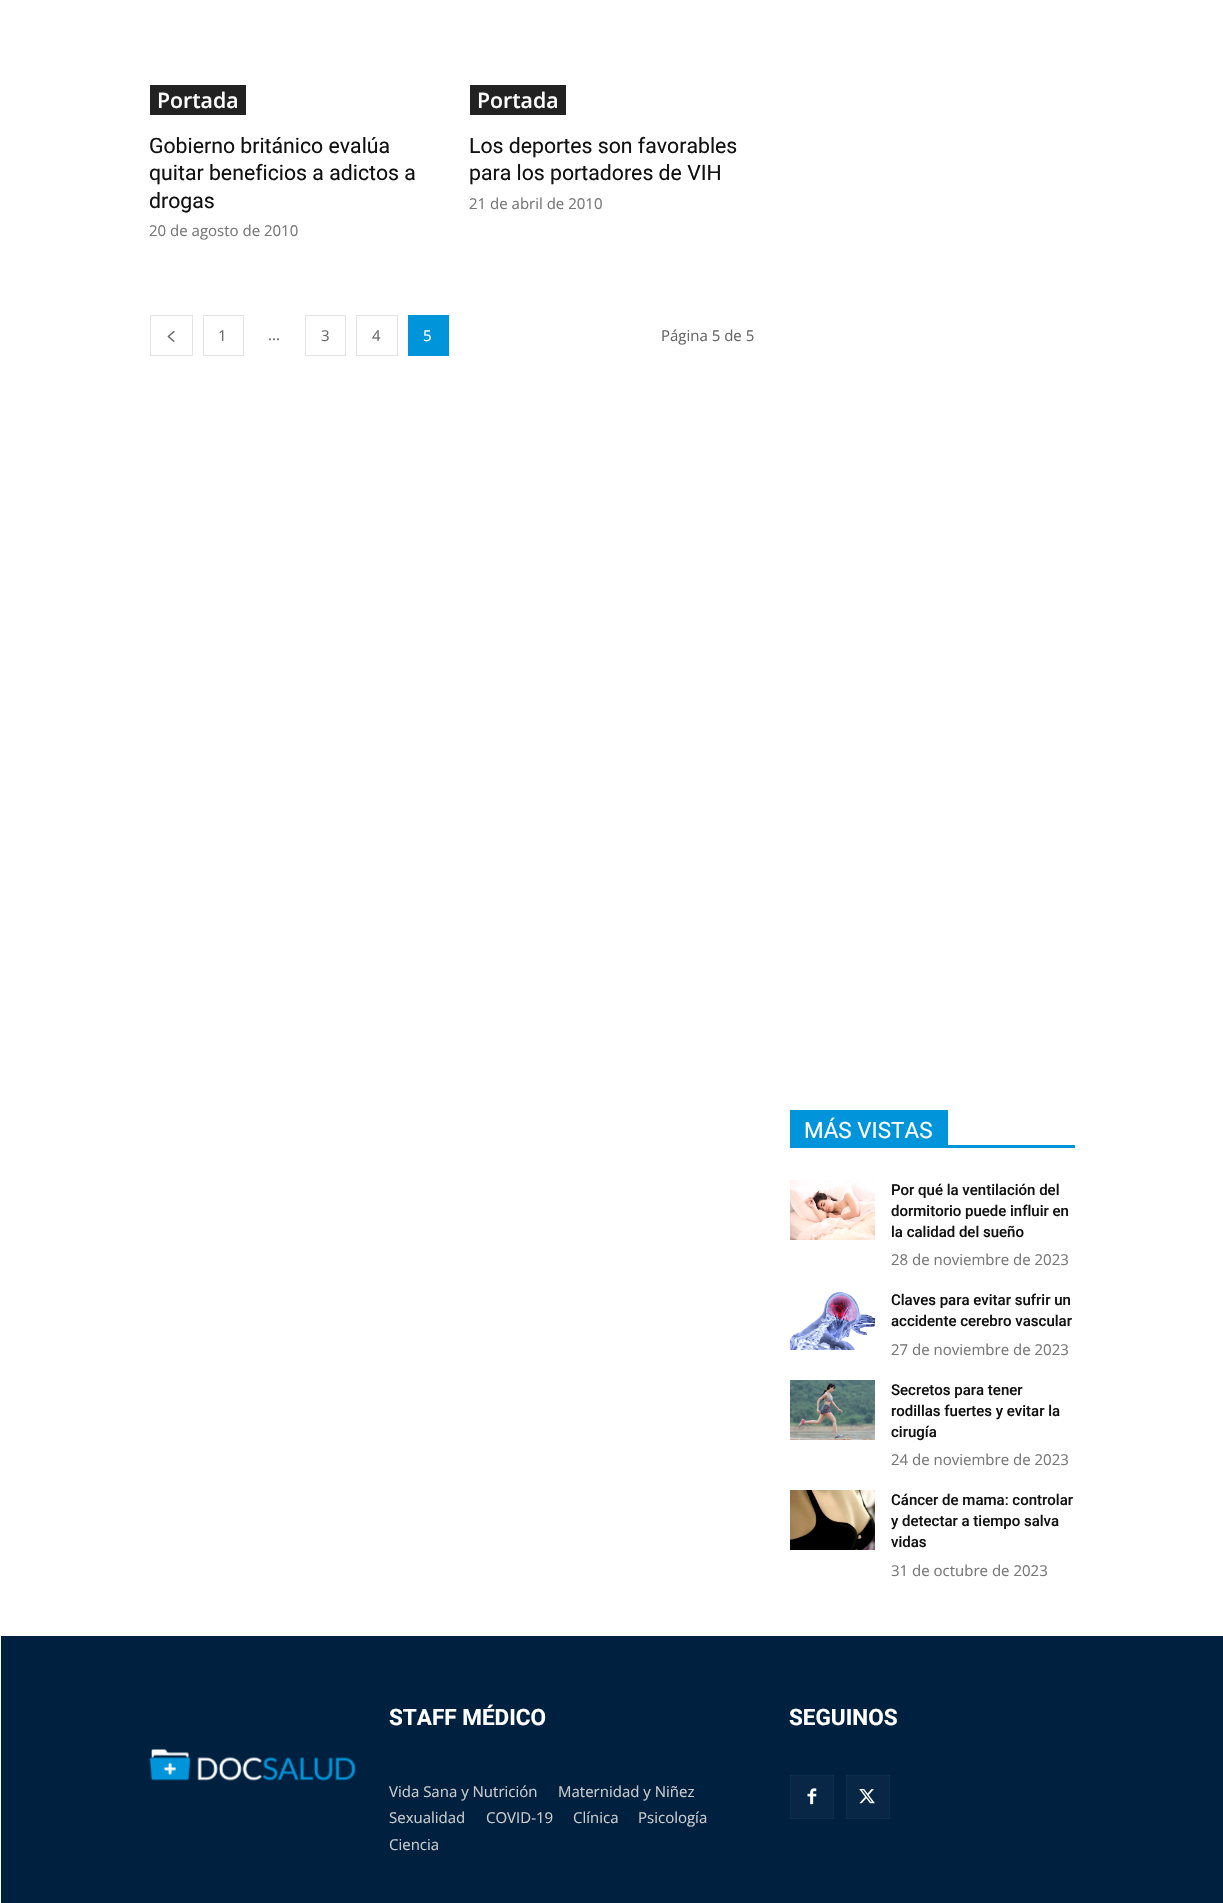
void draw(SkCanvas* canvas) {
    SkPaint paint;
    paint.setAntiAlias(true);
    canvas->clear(0xFFFFFFFF);
    paint.setColor(0xFF222222);
    canvas->drawRect(SkRect::MakeXYWH(150, 85, 96, 30), paint);
    SkFont font1(fontMgr->matchFamilyStyle("Open Sans", SkFontStyle(600, SkFontStyle::kNormal_Width, SkFontStyle::kUpright_Slant)), 21.25f);
    font1.setSubpixel(true);
    paint.setColor(0xFFFFFFFF);
    canvas->drawString("Portada", 157, 108, font1, paint);
    SkFont font2(fontMgr->matchFamilyStyle("Roboto", SkFontStyle::Normal()), 21.25f);
    font2.setSubpixel(true);
    paint.setColor(0xFF111111);
    canvas->drawString("Gobierno británico evalúa", 149, 153, font2, paint);
    canvas->drawString("quitar beneficios a adictos a", 149, 180, font2, paint);
    canvas->drawString("drogas", 149, 208, font2, paint);
    SkFont font3(fontMgr->matchFamilyStyle("Open Sans", SkFontStyle::Normal()), 15);
    font3.setSubpixel(true);
    paint.setColor(0xFF767676);
    canvas->drawString("20 de agosto de 2010", 149, 236, font3, paint);
    paint.setColor(0xFF222222);
    canvas->drawRect(SkRect::MakeXYWH(470, 85, 96, 30), paint);
    paint.setColor(0xFFFFFFFF);
    canvas->drawString("Portada", 477, 108, font1, paint);
    paint.setColor(0xFF111111);
    canvas->drawString("Los deportes son favorables", 469, 153, font2, paint);
    canvas->drawString("para los portadores de VIH", 469, 180, font2, paint);
    paint.setColor(0xFF767676);
    canvas->drawString("21 de abril de 2010", 469, 209, font3, paint);
    paint.setStyle(SkPaint::kStroke_Style);
    paint.setStrokeWidth(1);
    paint.setColor(0xFFE3E3E3);
    canvas->drawRect(SkRect::MakeXYWH(150.5f, 315.5f, 42, 40), paint);
    canvas->drawImageRect(SkImages::DeferredFromEncodedData(SkData::MakeFromFileName("img1.png")), SkRect::MakeXYWH(167, 330, 8, 12), SkSamplingOptions());
    canvas->drawRect(SkRect::MakeXYWH(203.5f, 315.5f, 40, 40), paint);
    paint.setStyle(SkPaint::kFill_Style);
    paint.setColor(0xFF666666);
    canvas->drawString("1", 218, 341, font3, paint);
    canvas->drawString("...", 268, 340, font3, paint);
    paint.setStyle(SkPaint::kStroke_Style);
    paint.setColor(0xFFE3E3E3);
    canvas->drawRect(SkRect::MakeXYWH(305.5f, 315.5f, 40, 40), paint);
    paint.setStyle(SkPaint::kFill_Style);
    paint.setColor(0xFF666666);
    canvas->drawString("3", 321, 341, font3, paint);
    paint.setStyle(SkPaint::kStroke_Style);
    paint.setColor(0xFFE3E3E3);
    canvas->drawRect(SkRect::MakeXYWH(356.5f, 315.5f, 41, 40), paint);
    paint.setStyle(SkPaint::kFill_Style);
    paint.setColor(0xFF666666);
    canvas->drawString("4", 372, 341, font3, paint);
    paint.setColor(0xFF0095DA);
    canvas->drawRect(SkRect::MakeXYWH(408, 315, 41, 41), paint);
    paint.setColor(0xFFFFFFFF);
    canvas->drawString("5", 423, 341, font3, paint);
    paint.setColor(0xFF666666);
    canvas->drawString("Página 5 de 5", 661, 341, font3, paint);
    paint.setColor(0xFF0095DA);
    canvas->drawRect(SkRect::MakeXYWH(790, 1145, 285, 3), paint);
    canvas->drawRect(SkRect::MakeXYWH(790, 1110, 158, 35), paint);
    SkFont font4(fontMgr->matchFamilyStyle("Roboto", SkFontStyle::Normal()), 22.5f);
    font4.setSubpixel(true);
    paint.setColor(0xFFFFFFFF);
    canvas->drawString("MÁS VISTAS", 804, 1138, font4, paint);
    canvas->drawImageRect(SkImages::DeferredFromEncodedData(SkData::MakeFromFileName("img2.png")), SkRect::MakeXYWH(790, 1180, 85, 60), SkSamplingOptions());
    SkFont font5(fontMgr->matchFamilyStyle("Roboto", SkFontStyle(500, SkFontStyle::kNormal_Width, SkFontStyle::kUpright_Slant)), 15);
    font5.setSubpixel(true);
    paint.setColor(0xFF111111);
    canvas->drawString("Por qué la ventilación del", 891, 1195, font5, paint);
    canvas->drawString("dormitorio puede influir en", 891, 1216, font5, paint);
    canvas->drawString("la calidad del sueño", 891, 1237, font5, paint);
    paint.setColor(0xFF767676);
    canvas->drawString("28 de noviembre de 2023", 891, 1265, font3, paint);
    canvas->drawImageRect(SkImages::DeferredFromEncodedData(SkData::MakeFromFileName("img3.png")), SkRect::MakeXYWH(790, 1291, 85, 59), SkSamplingOptions());
    paint.setColor(0xFF111111);
    canvas->drawString("Claves para evitar sufrir un", 891, 1305, font5, paint);
    canvas->drawString("accidente cerebro vascular", 891, 1326, font5, paint);
    paint.setColor(0xFF767676);
    canvas->drawString("27 de noviembre de 2023", 891, 1355, font3, paint);
    canvas->drawImageRect(SkImages::DeferredFromEncodedData(SkData::MakeFromFileName("img4.png")), SkRect::MakeXYWH(790, 1380, 85, 60), SkSamplingOptions());
    paint.setColor(0xFF111111);
    canvas->drawString("Secretos para tener", 891, 1395, font5, paint);
    canvas->drawString("rodillas fuertes y evitar la", 891, 1416, font5, paint);
    canvas->drawString("cirugía", 891, 1437, font5, paint);
    paint.setColor(0xFF767676);
    canvas->drawString("24 de noviembre de 2023", 891, 1465, font3, paint);
    canvas->drawImageRect(SkImages::DeferredFromEncodedData(SkData::MakeFromFileName("img5.png")), SkRect::MakeXYWH(790, 1490, 85, 60), SkSamplingOptions());
    paint.setColor(0xFF111111);
    canvas->drawString("Cáncer de mama: controlar", 891, 1505, font5, paint);
    canvas->drawString("y detectar a tiempo salva", 891, 1526, font5, paint);
    canvas->drawString("vidas", 891, 1547, font5, paint);
    paint.setColor(0xFF767676);
    canvas->drawString("31 de octubre de 2023", 891, 1576, font3, paint);
    paint.setColor(0xFF002040);
    canvas->drawRect(SkRect::MakeXYWH(1, 1636, 1222, 267), paint);
    SkFont font6(fontMgr->matchFamilyStyle("Roboto", SkFontStyle::Bold()), 22.5f);
    font6.setSubpixel(true);
    paint.setColor(0xFFFFFFFF);
    canvas->drawString("STAFF MÉDICO", 389, 1725, font6, paint);
    paint.setColor(0xFFCCCCCC);
    canvas->drawString("Vida Sana y Nutrición", 389, 1797, font3, paint);
    canvas->drawString("Maternidad y Niñez", 558, 1797, font3, paint);
    canvas->drawString("Sexualidad", 389, 1823, font3, paint);
    canvas->drawString("COVID-19", 486, 1823, font3, paint);
    canvas->drawString("Clínica", 573, 1823, font3, paint);
    canvas->drawString("Psicología", 638, 1823, font3, paint);
    canvas->drawString("Ciencia", 389, 1850, font3, paint);
    paint.setColor(0xFFFFFFFF);
    canvas->drawString("SEGUINOS", 789, 1725, font6, paint);
    paint.setColor(0xFF082746);
    canvas->drawRect(SkRect::MakeXYWH(790.5f, 1775.5f, 43, 43), paint);
    paint.setStyle(SkPaint::kStroke_Style);
    paint.setColor(0xFF0F2D4C);
    canvas->drawRect(SkRect::MakeXYWH(790.5f, 1775.5f, 43, 43), paint);
    canvas->drawImageRect(SkImages::DeferredFromEncodedData(SkData::MakeFromFileName("img6.png")), SkRect::MakeXYWH(807, 1788, 10, 17), SkSamplingOptions());
    paint.setStyle(SkPaint::kFill_Style);
    paint.setColor(0xFF082746);
    canvas->drawRect(SkRect::MakeXYWH(846.5f, 1775.5f, 43, 43), paint);
    paint.setStyle(SkPaint::kStroke_Style);
    paint.setColor(0xFF0F2D4C);
    canvas->drawRect(SkRect::MakeXYWH(846.5f, 1775.5f, 43, 43), paint);
    canvas->drawImageRect(SkImages::DeferredFromEncodedData(SkData::MakeFromFileName("img7.png")), SkRect::MakeXYWH(859, 1789, 16, 15), SkSamplingOptions());
    canvas->drawImageRect(SkImages::DeferredFromEncodedData(SkData::MakeFromFileName("img8.png")), SkRect::MakeXYWH(149, 1749, 207, 32), SkSamplingOptions());
}
